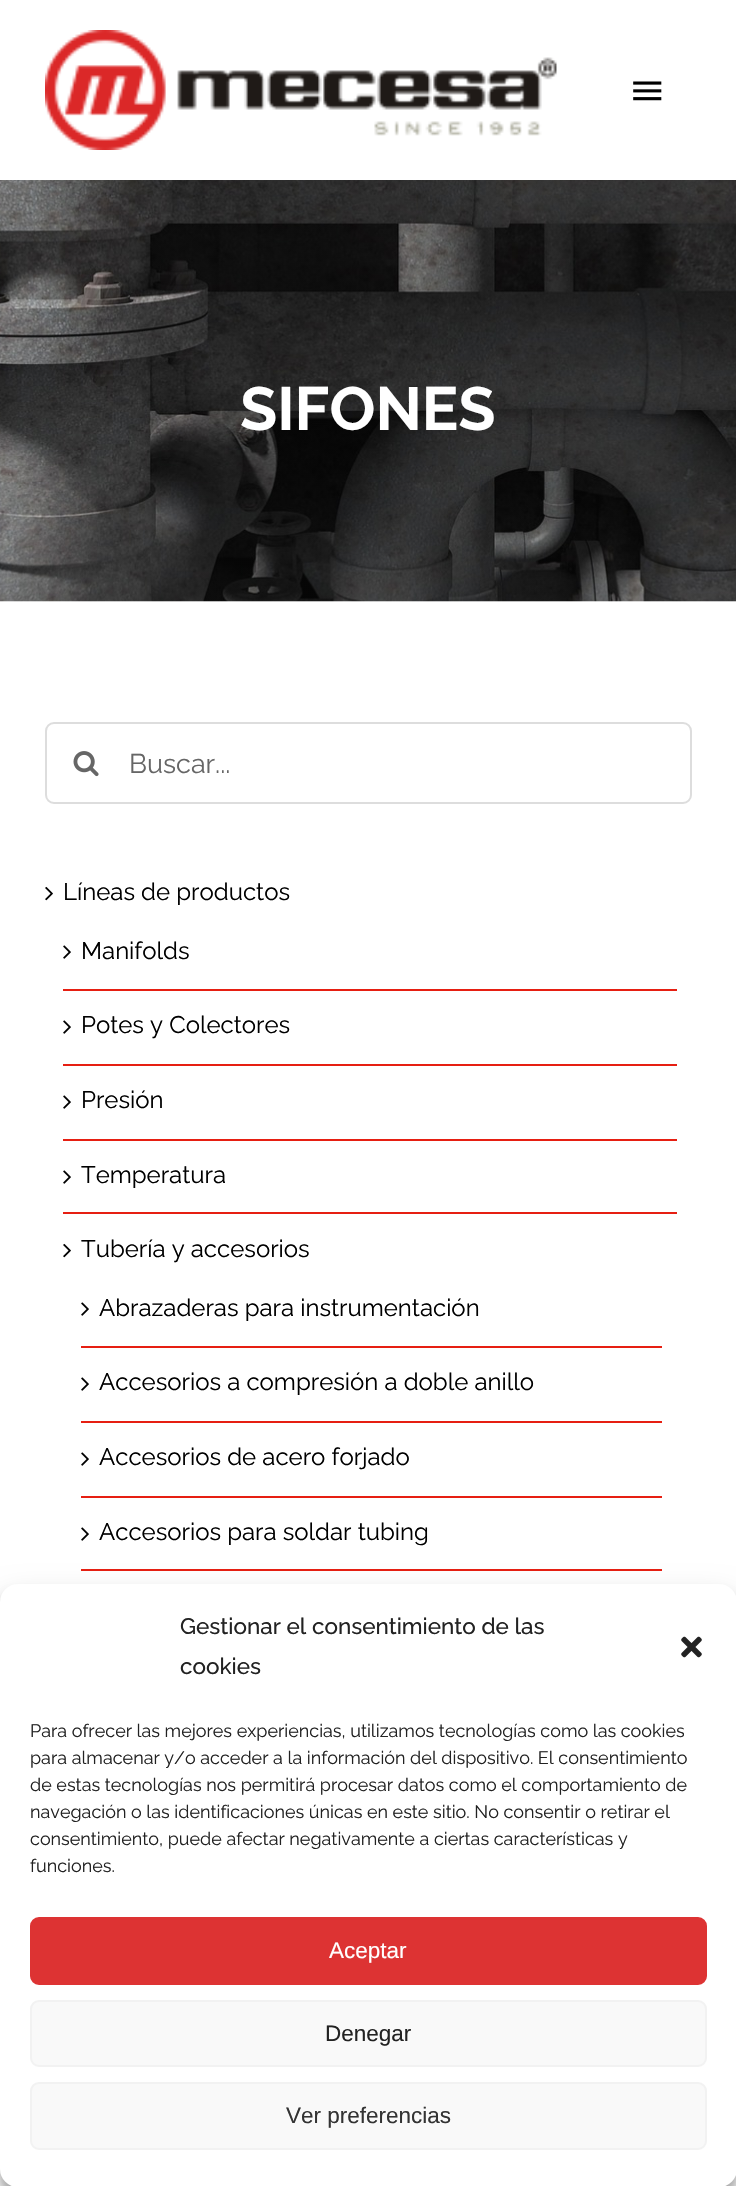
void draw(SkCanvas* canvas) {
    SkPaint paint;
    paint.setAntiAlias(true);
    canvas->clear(0xFFFFFFFF);
    canvas->drawImageRect(SkImages::DeferredFromEncodedData(SkData::MakeFromFileName("img1.png")), SkRect::MakeXYWH(45, 30, 512, 120), SkSamplingOptions());
    canvas->drawImageRect(SkImages::DeferredFromEncodedData(SkData::MakeFromFileName("img2.png")), SkRect::MakeXYWH(633, 81, 29, 20), SkSamplingOptions());
    canvas->drawImageRect(SkImages::DeferredFromEncodedData(SkData::MakeFromFileName("img3.png")), SkRect::MakeXYWH(0, 180, 736, 422), SkSamplingOptions());
    SkFont font1(fontMgr->matchFamilyStyle("Raleway", SkFontStyle::Bold()), 60.75f);
    font1.setSubpixel(true);
    paint.setColor(0xFFFFFFFF);
    canvas->drawString("SIFONES", 240, 430, font1, paint);
    paint.setStyle(SkPaint::kStroke_Style);
    paint.setStrokeWidth(2);
    paint.setColor(0xFFDDDDDD);
    canvas->drawRoundRect(SkRect::MakeXYWH(46, 723, 645, 80), 8, 8, paint);
    canvas->drawImageRect(SkImages::DeferredFromEncodedData(SkData::MakeFromFileName("img4.png")), SkRect::MakeXYWH(73, 751, 26, 26), SkSamplingOptions());
    SkFont font2(fontMgr->matchFamilyStyle("Raleway", SkFontStyle::Normal()), 27);
    font2.setSubpixel(true);
    paint.setStyle(SkPaint::kFill_Style);
    paint.setColor(0xFF666666);
    canvas->drawString("Buscar...", 129, 773, font2, paint);
    canvas->drawImageRect(SkImages::DeferredFromEncodedData(SkData::MakeFromFileName("img5.png")), SkRect::MakeXYWH(45, 886, 8, 15), SkSamplingOptions());
    SkFont font3(fontMgr->matchFamilyStyle("Raleway", SkFontStyle::Normal()), 24);
    font3.setSubpixel(true);
    paint.setColor(0xFF000000);
    canvas->drawString("Líneas de productos", 63, 900, font3, paint);
    paint.setColor(0xFFE61F12);
    canvas->drawRect(SkRect::MakeXYWH(63, 989, 614, 2), paint);
    canvas->drawImageRect(SkImages::DeferredFromEncodedData(SkData::MakeFromFileName("img6.png")), SkRect::MakeXYWH(63, 945, 8, 14), SkSamplingOptions());
    paint.setColor(0xFF000000);
    canvas->drawString("Manifolds", 81, 959, font3, paint);
    paint.setColor(0xFFE61F12);
    canvas->drawRect(SkRect::MakeXYWH(63, 1064, 614, 2), paint);
    canvas->drawImageRect(SkImages::DeferredFromEncodedData(SkData::MakeFromFileName("img6.png")), SkRect::MakeXYWH(63, 1020, 8, 14), SkSamplingOptions());
    paint.setColor(0xFF000000);
    canvas->drawString("Potes y Colectores", 81, 1033, font3, paint);
    paint.setColor(0xFFE61F12);
    canvas->drawRect(SkRect::MakeXYWH(63, 1139, 614, 2), paint);
    canvas->drawImageRect(SkImages::DeferredFromEncodedData(SkData::MakeFromFileName("img6.png")), SkRect::MakeXYWH(63, 1095, 8, 14), SkSamplingOptions());
    paint.setColor(0xFF000000);
    canvas->drawString("Presión", 81, 1108, font3, paint);
    paint.setColor(0xFFE61F12);
    canvas->drawRect(SkRect::MakeXYWH(63, 1212, 614, 2), paint);
    canvas->drawImageRect(SkImages::DeferredFromEncodedData(SkData::MakeFromFileName("img6.png")), SkRect::MakeXYWH(63, 1170, 8, 14), SkSamplingOptions());
    paint.setColor(0xFF000000);
    canvas->drawString("Temperatura", 81, 1183, font3, paint);
    canvas->drawImageRect(SkImages::DeferredFromEncodedData(SkData::MakeFromFileName("img5.png")), SkRect::MakeXYWH(63, 1243, 8, 15), SkSamplingOptions());
    canvas->drawString("Tubería y accesorios", 81, 1257, font3, paint);
    paint.setColor(0xFFE61F12);
    canvas->drawRect(SkRect::MakeXYWH(81, 1346, 581, 2), paint);
    canvas->drawImageRect(SkImages::DeferredFromEncodedData(SkData::MakeFromFileName("img6.png")), SkRect::MakeXYWH(81, 1302, 8, 14), SkSamplingOptions());
    paint.setColor(0xFF000000);
    canvas->drawString("Abrazaderas para instrumentación", 99, 1316, font3, paint);
    paint.setColor(0xFFE61F12);
    canvas->drawRect(SkRect::MakeXYWH(81, 1421, 581, 2), paint);
    canvas->drawImageRect(SkImages::DeferredFromEncodedData(SkData::MakeFromFileName("img6.png")), SkRect::MakeXYWH(81, 1377, 8, 14), SkSamplingOptions());
    paint.setColor(0xFF000000);
    canvas->drawString("Accesorios a compresión a doble anillo", 99, 1390, font3, paint);
    paint.setColor(0xFFE61F12);
    canvas->drawRect(SkRect::MakeXYWH(81, 1496, 581, 2), paint);
    canvas->drawImageRect(SkImages::DeferredFromEncodedData(SkData::MakeFromFileName("img6.png")), SkRect::MakeXYWH(81, 1452, 8, 14), SkSamplingOptions());
    paint.setColor(0xFF000000);
    canvas->drawString("Accesorios de acero forjado", 99, 1465, font3, paint);
    paint.setColor(0xFFE61F12);
    canvas->drawRect(SkRect::MakeXYWH(81, 1569, 581, 2), paint);
    canvas->drawImageRect(SkImages::DeferredFromEncodedData(SkData::MakeFromFileName("img6.png")), SkRect::MakeXYWH(81, 1527, 8, 14), SkSamplingOptions());
    paint.setColor(0xFF000000);
    canvas->drawString("Accesorios para soldar tubing", 99, 1540, font3, paint);
    paint.setColor(0x3B000000);
    paint.setMaskFilter(SkMaskFilter::MakeBlur(kNormal_SkBlurStyle, 4.5f));
    canvas->drawRoundRect(SkRect::MakeXYWH(0, 1593, 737, 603), 18, 18, paint);
    paint.setMaskFilter(nullptr);
    paint.setColor(0x30000000);
    paint.setMaskFilter(SkMaskFilter::MakeBlur(kNormal_SkBlurStyle, 15));
    canvas->drawRoundRect(SkRect::MakeXYWH(0, 1599, 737, 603), 18, 18, paint);
    paint.setMaskFilter(nullptr);
    paint.setColor(0xFFFFFFFF);
    canvas->drawRoundRect(SkRect::MakeXYWH(0, 1584, 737, 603), 18, 18, paint);
    SkFont font4(fontMgr->matchFamilyStyle("Raleway", SkFontStyle(500, SkFontStyle::kNormal_Width, SkFontStyle::kUpright_Slant)), 22.5f);
    font4.setSubpixel(true);
    paint.setColor(0xFF222222);
    canvas->drawString("Gestionar el consentimiento de las", 180, 1634, font4, paint);
    canvas->drawString("cookies", 180, 1674, font4, paint);
    canvas->drawImageRect(SkImages::DeferredFromEncodedData(SkData::MakeFromFileName("img7.png")), SkRect::MakeXYWH(681, 1636, 21, 22), SkSamplingOptions());
    SkFont font5(fontMgr->matchFamilyStyle("Raleway", SkFontStyle::Normal()), 18);
    font5.setSubpixel(true);
    canvas->drawString("Para ofrecer las mejores experiencias, utilizamos tecnologías como las cookies", 30, 1737, font5, paint);
    canvas->drawString("para almacenar y/o acceder a la información del dispositivo. El consentimiento", 30, 1764, font5, paint);
    canvas->drawString("de estas tecnologías nos permitirá procesar datos como el comportamiento de", 30, 1791, font5, paint);
    canvas->drawString("navegación o las identificaciones únicas en este sitio. No consentir o retirar el", 30, 1818, font5, paint);
    canvas->drawString("consentimiento, puede afectar negativamente a ciertas características y", 30, 1845, font5, paint);
    canvas->drawString("funciones.", 30, 1872, font5, paint);
    paint.setColor(0xFFDD3333);
    canvas->drawRoundRect(SkRect::MakeXYWH(31, 1918, 675, 66), 8, 8, paint);
    paint.setStyle(SkPaint::kStroke_Style);
    canvas->drawRoundRect(SkRect::MakeXYWH(31, 1918, 675, 66), 8, 8, paint);
    SkFont font6(fontMgr->matchFamilyStyle("Liberation Sans", SkFontStyle::Normal()), 22.5f);
    font6.setSubpixel(true);
    paint.setStyle(SkPaint::kFill_Style);
    paint.setColor(0xFFFFFFFF);
    canvas->drawString("Aceptar", 329, 1958, font6, paint);
    paint.setColor(0xFFF9F9F9);
    canvas->drawRoundRect(SkRect::MakeXYWH(31, 2001, 675, 65), 8, 8, paint);
    paint.setStyle(SkPaint::kStroke_Style);
    paint.setColor(0xFFF2F2F2);
    canvas->drawRoundRect(SkRect::MakeXYWH(31, 2001, 675, 65), 8, 8, paint);
    paint.setStyle(SkPaint::kFill_Style);
    paint.setColor(0xFF222222);
    canvas->drawString("Denegar", 325, 2041, font6, paint);
    paint.setColor(0xFFF9F9F9);
    canvas->drawRoundRect(SkRect::MakeXYWH(31, 2083, 675, 66), 8, 8, paint);
    paint.setStyle(SkPaint::kStroke_Style);
    paint.setColor(0xFFF2F2F2);
    canvas->drawRoundRect(SkRect::MakeXYWH(31, 2083, 675, 66), 8, 8, paint);
    paint.setStyle(SkPaint::kFill_Style);
    paint.setColor(0xFF333333);
    canvas->drawString("Ver preferencias", 286, 2123, font6, paint);
}
